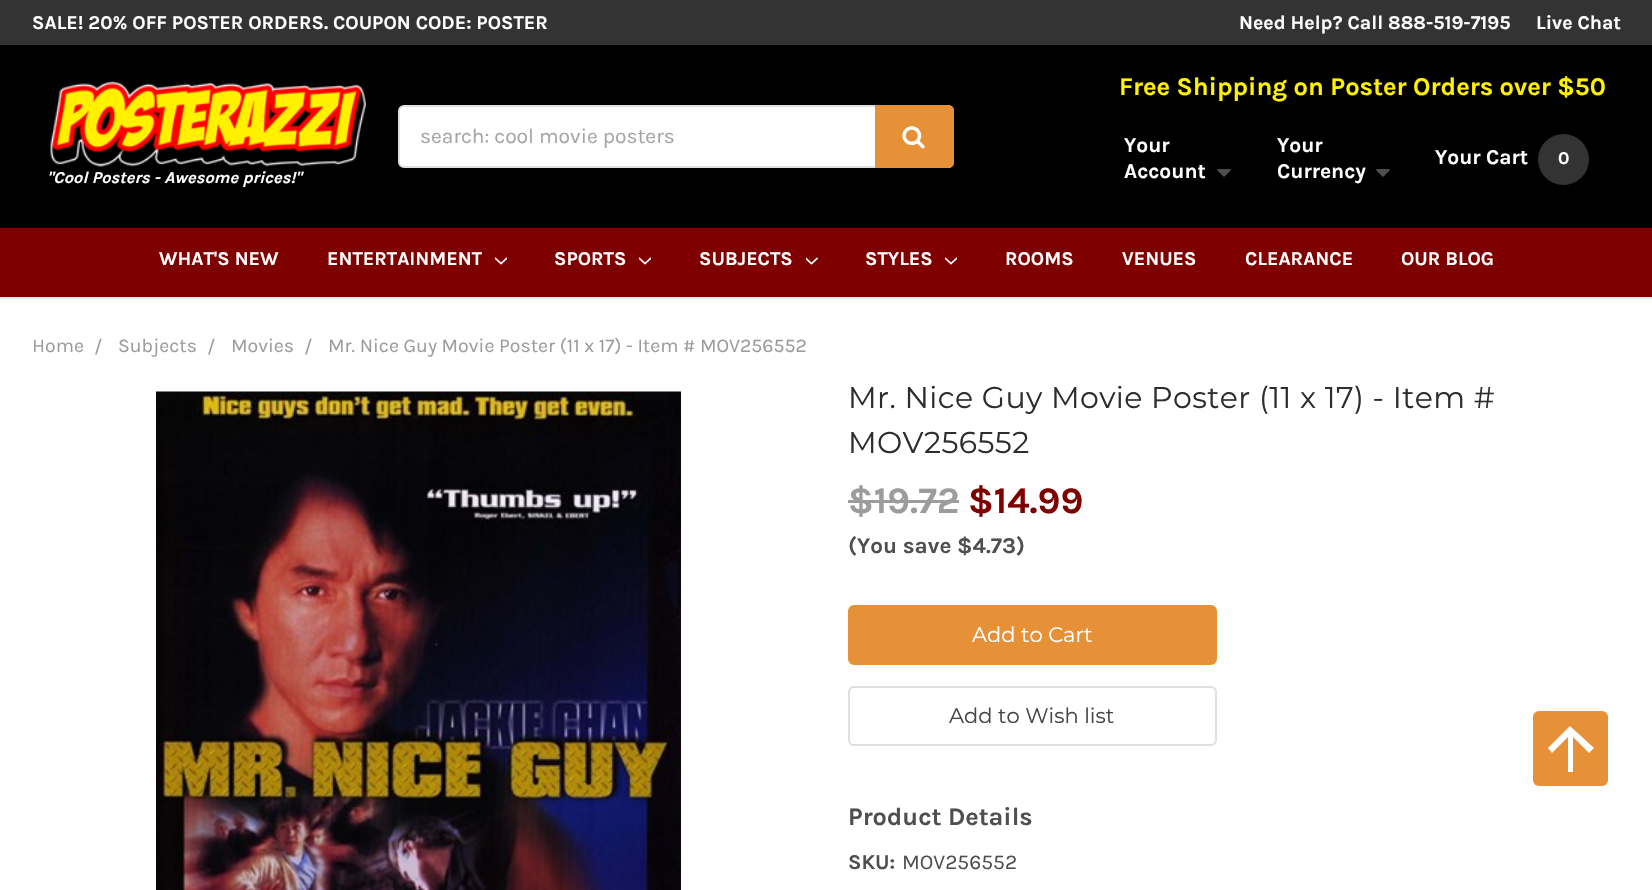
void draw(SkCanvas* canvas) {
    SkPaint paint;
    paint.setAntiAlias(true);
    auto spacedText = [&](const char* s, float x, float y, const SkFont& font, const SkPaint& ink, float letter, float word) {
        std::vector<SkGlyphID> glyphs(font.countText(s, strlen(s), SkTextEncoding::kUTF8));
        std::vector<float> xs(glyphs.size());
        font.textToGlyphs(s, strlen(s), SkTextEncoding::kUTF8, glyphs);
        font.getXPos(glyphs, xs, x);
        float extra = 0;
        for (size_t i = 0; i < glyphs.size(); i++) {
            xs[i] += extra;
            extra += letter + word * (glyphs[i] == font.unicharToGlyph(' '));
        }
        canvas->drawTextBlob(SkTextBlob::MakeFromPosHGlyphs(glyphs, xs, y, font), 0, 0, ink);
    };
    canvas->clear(0xFFFFFFFF);
    paint.setColor(0xFF000000);
    canvas->drawRect(SkRect::MakeXYWH(0, 45, 1652, 183), paint);
    paint.setColor(0xFFE8E8E8);
    canvas->drawRect(SkRect::MakeXYWH(0, 297, 1652, 2), paint);
    paint.setColor(0xFF333333);
    canvas->drawRect(SkRect::MakeXYWH(0, 0, 1652, 45), paint);
    SkFont font1(fontMgr->matchFamilyStyle("Karla", SkFontStyle::Bold()), 19.5f);
    font1.setSubpixel(true);
    paint.setColor(0xFFFFFFFF);
    canvas->drawString("SALE! 20% OFF POSTER ORDERS. COUPON CODE: POSTER", 32, 29, font1, paint);
    canvas->drawString("Need Help? Call 888-519-7195", 1239, 29, font1, paint);
    canvas->drawString("Live Chat", 1536, 29, font1, paint);
    canvas->drawRoundRect(SkRect::MakeXYWH(399, 106, 554, 61), 5, 5, paint);
    paint.setStyle(SkPaint::kStroke_Style);
    paint.setStrokeWidth(2);
    paint.setColor(0xFFDFDFDF);
    canvas->drawRoundRect(SkRect::MakeXYWH(399, 106, 554, 61), 5, 5, paint);
    SkFont font2(fontMgr->matchFamilyStyle("Karla", SkFontStyle::Normal()), 21);
    font2.setSubpixel(true);
    paint.setStyle(SkPaint::kFill_Style);
    paint.setColor(0xFFA5A5A5);
    canvas->drawString("search: cool movie posters", 420, 143, font2, paint);
    paint.setColor(0xFFE69138);
    canvas->drawPath(SkPathBuilder().moveTo(876, 106).lineTo(948, 106).cubicTo(951, 106, 953, 108, 953, 111).lineTo(953, 162).cubicTo(953, 165, 951, 167, 948, 167).lineTo(876, 167).close().detach(), paint);
    paint.setStyle(SkPaint::kStroke_Style);
    canvas->drawPath(SkPathBuilder().moveTo(876, 106).lineTo(948, 106).cubicTo(951, 106, 953, 108, 953, 111).lineTo(953, 162).cubicTo(953, 165, 951, 167, 948, 167).lineTo(876, 167).close().detach(), paint);
    canvas->drawImageRect(SkImages::DeferredFromEncodedData(SkData::MakeFromFileName("img1.png")), SkRect::MakeXYWH(902, 126, 23, 23), SkSamplingOptions());
    SkFont font3(fontMgr->matchFamilyStyle("Karla", SkFontStyle::Bold()), 25.5f);
    font3.setSubpixel(true);
    paint.setStyle(SkPaint::kFill_Style);
    paint.setColor(0xFFFFF100);
    canvas->drawString("Free Shipping on Poster Orders over $50", 1119, 95, font3, paint);
    SkFont font4(fontMgr->matchFamilyStyle("Karla", SkFontStyle::Bold()), 21);
    font4.setSubpixel(true);
    paint.setColor(0xFFFFFFFF);
    canvas->drawString("Your", 1124, 152, font4, paint);
    canvas->drawString("Account", 1124, 178, font4, paint);
    canvas->drawImageRect(SkImages::DeferredFromEncodedData(SkData::MakeFromFileName("img2.png")), SkRect::MakeXYWH(1217, 169, 14, 8), SkSamplingOptions());
    canvas->drawString("Your", 1277, 152, font4, paint);
    canvas->drawString("Currency", 1277, 178, font4, paint);
    canvas->drawImageRect(SkImages::DeferredFromEncodedData(SkData::MakeFromFileName("img2.png")), SkRect::MakeXYWH(1376, 169, 14, 8), SkSamplingOptions());
    canvas->drawString("Your Cart", 1435, 164, font4, paint);
    paint.setColor(0xFF333333);
    canvas->drawCircle(1563.5f, 159.5f, 25.5f, paint);
    SkFont font5(fontMgr->matchFamilyStyle("Karla", SkFontStyle::Bold()), 18);
    font5.setSubpixel(true);
    paint.setColor(0xFFFFFFFF);
    canvas->drawString("0", 1558, 164, font5, paint);
    canvas->drawImageRect(SkImages::DeferredFromEncodedData(SkData::MakeFromFileName("img3.png")), SkRect::MakeXYWH(50, 81, 316, 86), SkSamplingOptions());
    SkFont font6(fontMgr->matchFamilyStyle("Karla", SkFontStyle::BoldItalic()), 16.5f);
    font6.setSubpixel(true);
    canvas->drawString("\"Cool Posters - Awesome prices!\"", 47, 183, font6, paint);
    paint.setColor(0xFF7F0000);
    canvas->drawRect(SkRect::MakeXYWH(0, 228, 1652, 69), paint);
    paint.setColor(0xFFFFFFFF);
    canvas->drawString("WHAT'S NEW", 159, 265, font1, paint);
    canvas->drawString("ENTERTAINMENT", 327, 265, font1, paint);
    canvas->drawImageRect(SkImages::DeferredFromEncodedData(SkData::MakeFromFileName("img4.png")), SkRect::MakeXYWH(495, 257, 12, 8), SkSamplingOptions());
    canvas->drawString("SPORTS", 554, 265, font1, paint);
    canvas->drawImageRect(SkImages::DeferredFromEncodedData(SkData::MakeFromFileName("img4.png")), SkRect::MakeXYWH(639, 257, 12, 8), SkSamplingOptions());
    canvas->drawString("SUBJECTS", 699, 265, font1, paint);
    canvas->drawImageRect(SkImages::DeferredFromEncodedData(SkData::MakeFromFileName("img5.png")), SkRect::MakeXYWH(806, 257, 12, 8), SkSamplingOptions());
    canvas->drawString("STYLES", 865, 265, font1, paint);
    canvas->drawImageRect(SkImages::DeferredFromEncodedData(SkData::MakeFromFileName("img4.png")), SkRect::MakeXYWH(945, 257, 12, 8), SkSamplingOptions());
    canvas->drawString("ROOMS", 1005, 265, font1, paint);
    canvas->drawString("VENUES", 1122, 265, font1, paint);
    canvas->drawString("CLEARANCE", 1245, 265, font1, paint);
    canvas->drawString("OUR BLOG", 1401, 265, font1, paint);
    SkFont font7(fontMgr->matchFamilyStyle("Karla", SkFontStyle::Normal()), 19.5f);
    font7.setSubpixel(true);
    paint.setColor(0xFF9C9C9C);
    canvas->drawString("Home", 32, 352, font7, paint);
    canvas->drawString("/", 94, 353, font7, paint);
    canvas->drawString("Subjects", 118, 352, font7, paint);
    canvas->drawString("/", 207, 353, font7, paint);
    canvas->drawString("Movies", 231, 352, font7, paint);
    canvas->drawString("/", 304, 353, font7, paint);
    canvas->drawString("Mr. Nice Guy Movie Poster (11 x 17) - Item # MOV256552", 328, 352, font7, paint);
    canvas->drawImageRect(SkImages::DeferredFromEncodedData(SkData::MakeFromFileName("img6.png")), SkRect::MakeXYWH(156, 391, 525, 499), SkSamplingOptions());
    SkFont font8(fontMgr->matchFamilyStyle("Montserrat", SkFontStyle::Normal()), 30);
    font8.setSubpixel(true);
    paint.setColor(0xFF2D2D2D);
    spacedText("Mr. Nice Guy Movie Poster (11 x 17) - Item #", 848, 408, font8, paint, 0.4f, 0);
    spacedText("MOV256552", 848, 453, font8, paint, 0.4f, 0);
    SkFont font9(fontMgr->matchFamilyStyle("Karla", SkFontStyle::Bold()), 37.5f);
    font9.setSubpixel(true);
    paint.setColor(0xFF9C9C9C);
    canvas->drawString("$19.72", 848, 513, font9, paint);
    canvas->drawRect(SkRect::MakeXYWH(848, 500, 111, 3), paint);
    paint.setColor(0xFF7F0000);
    canvas->drawString("$14.99", 968, 513, font9, paint);
    SkFont font10(fontMgr->matchFamilyStyle("Karla", SkFontStyle::Bold()), 22.5f);
    font10.setSubpixel(true);
    paint.setColor(0xFF4F4F4F);
    canvas->drawString("(You save $4.73)", 848, 553, font10, paint);
    paint.setColor(0xFFE69138);
    canvas->drawRoundRect(SkRect::MakeXYWH(849, 606, 367, 58), 5, 5, paint);
    paint.setStyle(SkPaint::kStroke_Style);
    canvas->drawRoundRect(SkRect::MakeXYWH(849, 606, 367, 58), 5, 5, paint);
    SkFont font11(fontMgr->matchFamilyStyle("Montserrat", SkFontStyle::Normal()), 21);
    font11.setSubpixel(true);
    paint.setStyle(SkPaint::kFill_Style);
    paint.setColor(0xFFFFFFFF);
    canvas->drawString("Add to Cart", 972, 642, font11, paint);
    paint.setStyle(SkPaint::kStroke_Style);
    paint.setColor(0xFFDFDFDF);
    canvas->drawRoundRect(SkRect::MakeXYWH(849, 687, 367, 58), 5, 5, paint);
    paint.setStyle(SkPaint::kFill_Style);
    paint.setColor(0xFF454545);
    canvas->drawString("Add to Wish list", 949, 723, font11, paint);
    SkFont font12(fontMgr->matchFamilyStyle("Karla", SkFontStyle::Bold()), 25.25f);
    font12.setSubpixel(true);
    paint.setColor(0xFF4F4F4F);
    canvas->drawString("Product Details", 848, 825, font12, paint);
    canvas->drawString("SKU:", 848, 869, font4, paint);
    canvas->drawString("MOV256552", 902, 869, font2, paint);
    paint.setColor(0xFFE69138);
    canvas->drawRoundRect(SkRect::MakeXYWH(1533, 711, 75, 75), 6, 6, paint);
    paint.setColor(0xFFFFFFFF);
    canvas->drawPath(SkPathBuilder().moveTo(1573, 772).lineTo(1573, 737).lineTo(1589, 753).lineTo(1594, 748).lineTo(1570, 726).lineTo(1548, 748).lineTo(1552, 753).lineTo(1568, 737).lineTo(1568, 772).close().detach(), paint);
}
